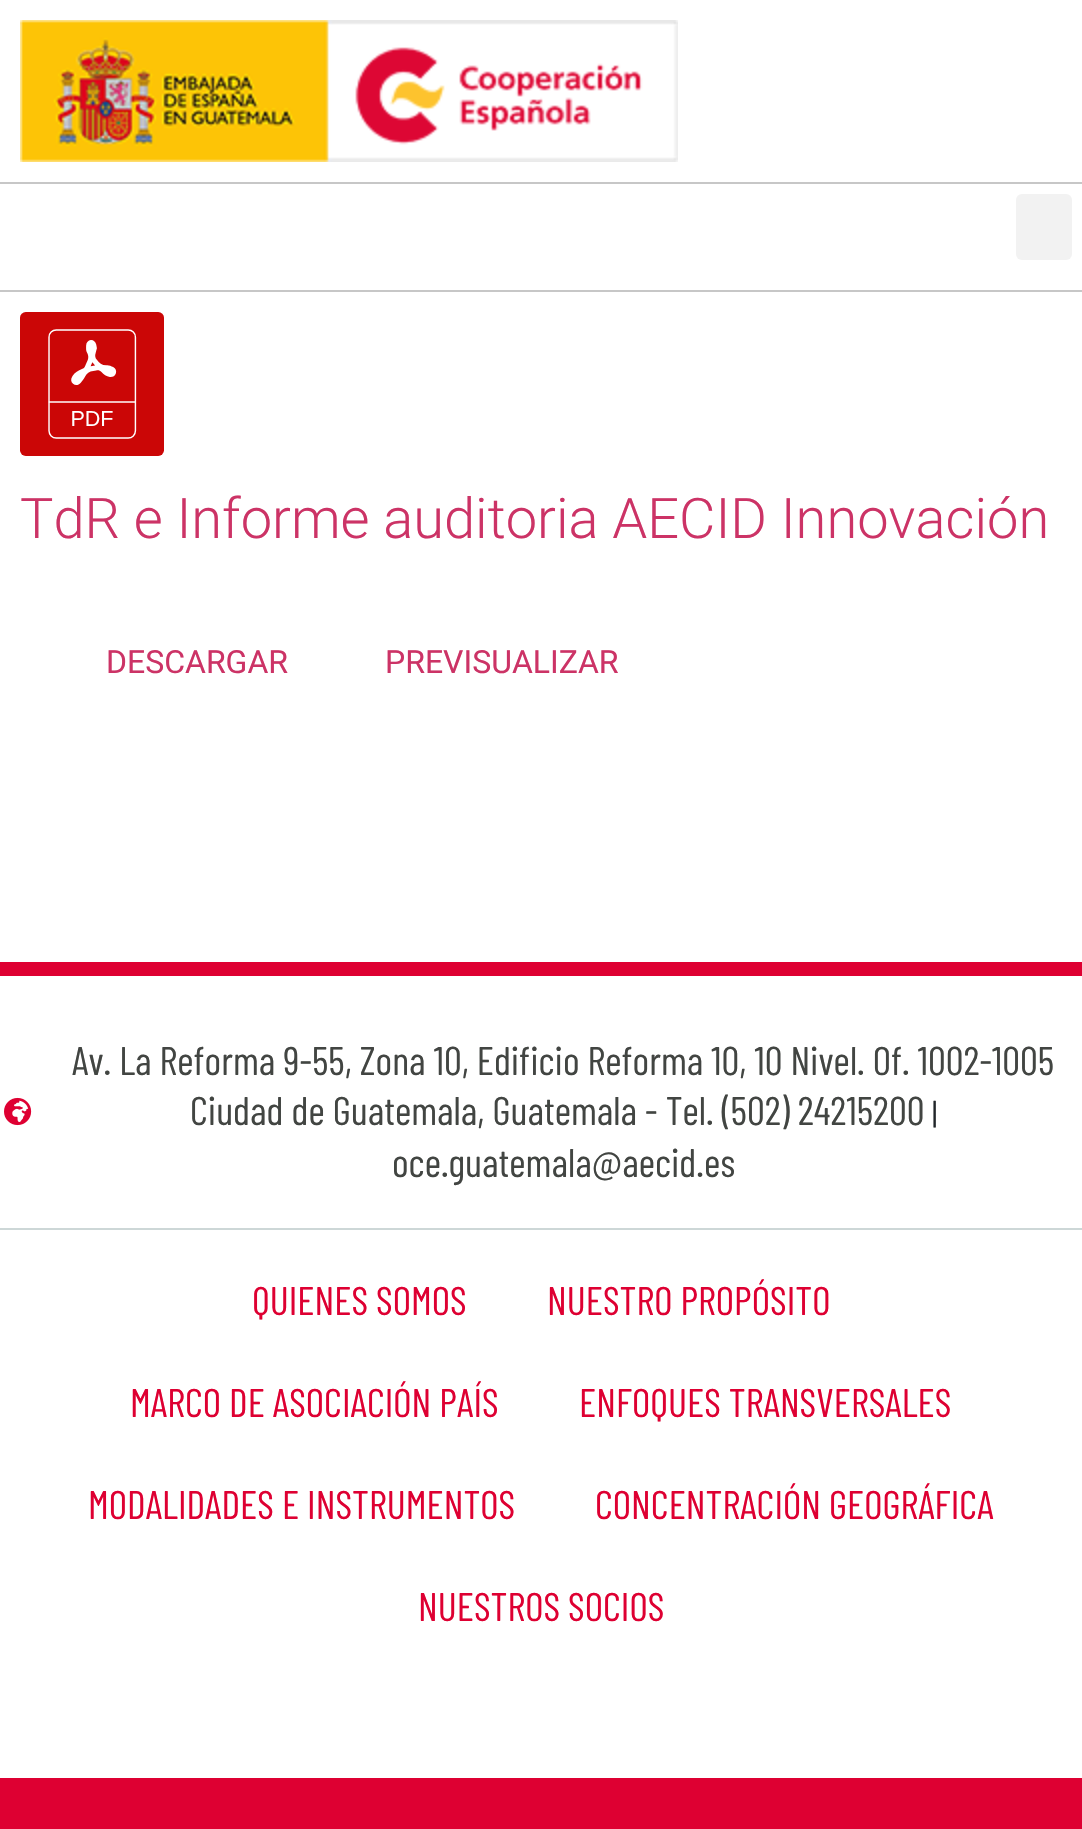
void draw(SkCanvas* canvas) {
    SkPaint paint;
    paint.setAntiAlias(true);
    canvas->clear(0xFFFFFFFF);
    canvas->drawImageRect(SkImages::DeferredFromEncodedData(SkData::MakeFromFileName("img1.png")), SkRect::MakeXYWH(20, 20, 658, 142), SkSamplingOptions());
    paint.setColor(0xFFC7C7C7);
    canvas->drawRect(SkRect::MakeXYWH(0, 182, 1082, 2), paint);
    canvas->drawRect(SkRect::MakeXYWH(0, 290, 1082, 2), paint);
    paint.setColor(0xFFF2F2F2);
    canvas->drawRoundRect(SkRect::MakeXYWH(1016, 194, 56, 66), 6, 6, paint);
    canvas->drawImageRect(SkImages::DeferredFromEncodedData(SkData::MakeFromFileName("img2.png")), SkRect::MakeXYWH(20, 312, 144, 144), SkSamplingOptions());
    SkFont font1(fontMgr->matchFamilyStyle("Roboto", SkFontStyle(300, SkFontStyle::kNormal_Width, SkFontStyle::kUpright_Slant)), 56);
    font1.setSubpixel(true);
    paint.setColor(0xFFCC3366);
    canvas->drawString("TdR e Informe auditoria AECID Innovación", 20, 538, font1, paint);
    SkFont font2(fontMgr->matchFamilyStyle("Roboto", SkFontStyle::Normal()), 32);
    font2.setSubpixel(true);
    canvas->drawString("DESCARGAR", 106, 673, font2, paint);
    canvas->drawString("PREVISUALIZAR", 385, 673, font2, paint);
    paint.setColor(0xFFDE0032);
    canvas->drawRect(SkRect::MakeXYWH(0, 962, 1082, 14), paint);
    canvas->drawImageRect(SkImages::DeferredFromEncodedData(SkData::MakeFromFileName("img3.png")), SkRect::MakeXYWH(4, 1097, 28, 29), SkSamplingOptions());
    SkFont font3(fontMgr->matchFamilyStyle("Barlow Condensed", SkFontStyle::Normal()), 40);
    font3.setSubpixel(true);
    paint.setColor(0xFF424542);
    canvas->drawString("Av. La Reforma 9-55, Zona 10, Edificio Reforma 10, 10 Nivel. Of. 1002-1005", 72, 1075, font3, paint);
    canvas->drawString("Ciudad de Guatemala, Guatemala - Tel. (502) 24215200", 190, 1125, font3, paint);
    SkFont font4(fontMgr->matchFamilyStyle("Barlow", SkFontStyle::Normal()), 32);
    font4.setSubpixel(true);
    paint.setColor(0xFF212529);
    canvas->drawString("|", 932, 1125, font4, paint);
    paint.setColor(0xFF424542);
    canvas->drawString("oce.guatemala@aecid.es", 392, 1177, font3, paint);
    paint.setColor(0xFFCDD7D7);
    canvas->drawRect(SkRect::MakeXYWH(0, 1228, 1082, 2), paint);
    paint.setColor(0xFFDE0032);
    canvas->drawString("QUIENES SOMOS", 252, 1315, font3, paint);
    canvas->drawString("NUESTRO PROPÓSITO", 547, 1315, font3, paint);
    canvas->drawString("MARCO DE ASOCIACIÓN PAÍS", 130, 1417, font3, paint);
    canvas->drawString("ENFOQUES TRANSVERSALES", 579, 1417, font3, paint);
    canvas->drawString("MODALIDADES E INSTRUMENTOS", 88, 1519, font3, paint);
    canvas->drawString("CONCENTRACIÓN GEOGRÁFICA", 595, 1519, font3, paint);
    canvas->drawString("NUESTROS SOCIOS", 418, 1621, font3, paint);
    canvas->drawRect(SkRect::MakeXYWH(0, 1778, 1082, 51), paint);
}
